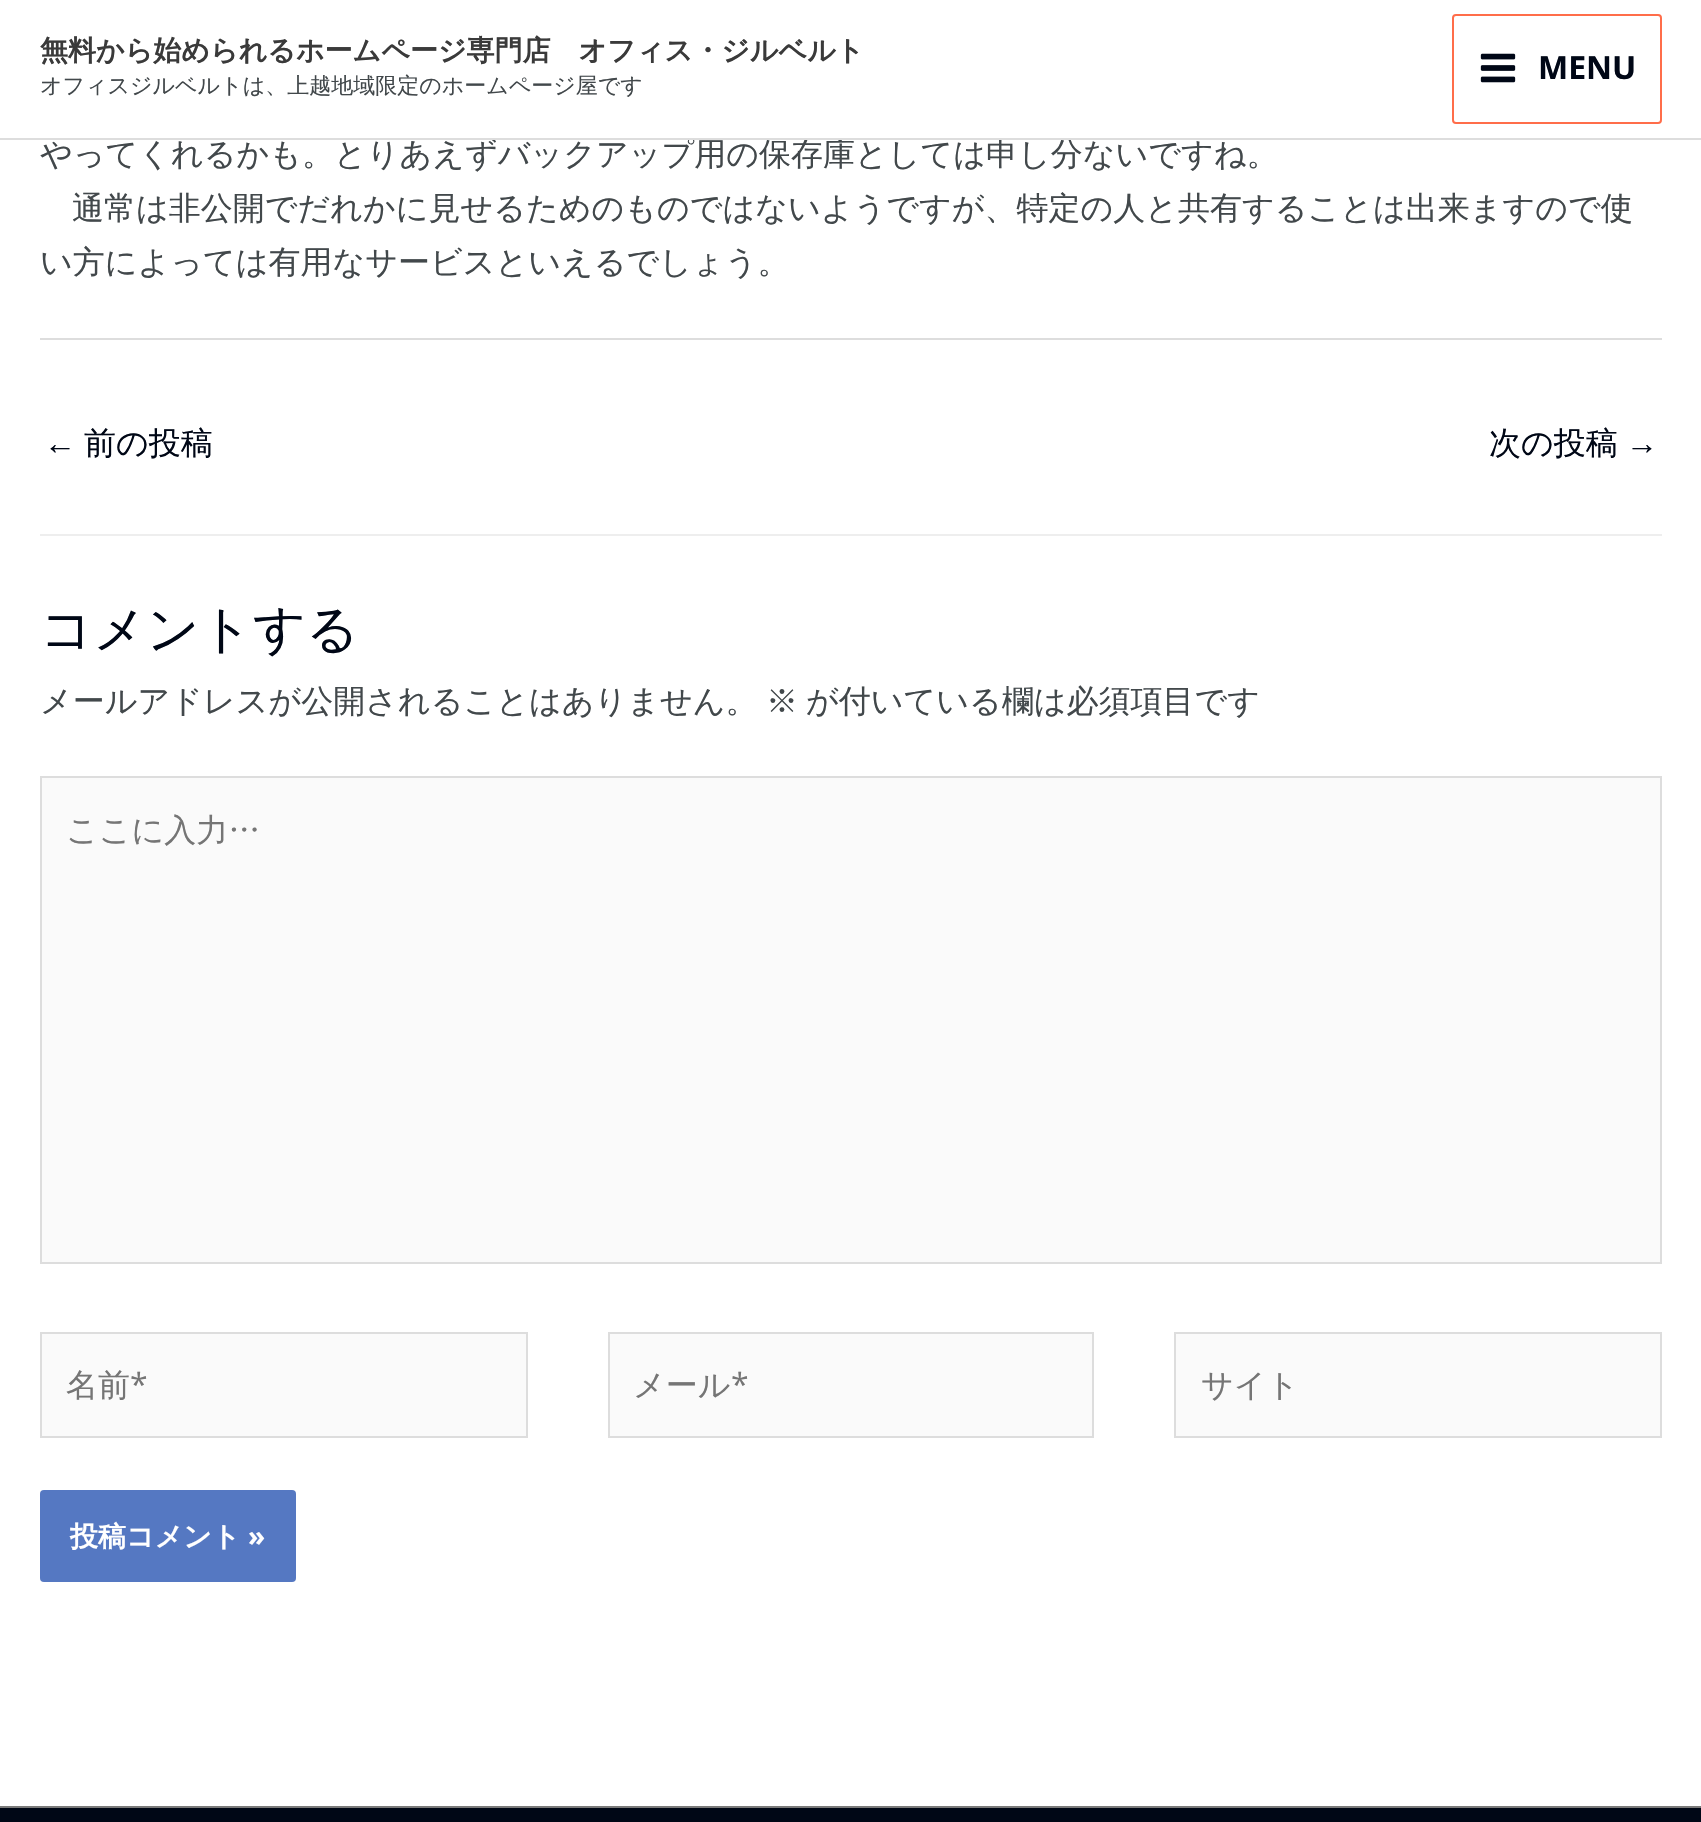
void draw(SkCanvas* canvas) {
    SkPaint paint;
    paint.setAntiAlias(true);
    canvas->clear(0xFFFFFFFF);
    SkFont font1(fontMgr->matchFamilyStyle("WenQuanYi Zen Hei", SkFontStyle(500, SkFontStyle::kNormal_Width, SkFontStyle::kUpright_Slant)), 32);
    font1.setSubpixel(true);
    paint.setColor(0xFF42484B);
    canvas->drawString("やってくれるかも。とりあえずバックアップ用の保存庫としては申し分ないですね。", 40, 165, font1, paint);
    paint.setColor(0xFFFFFFFF);
    canvas->drawRect(SkRect::MakeXYWH(838, 137, 1, 1), paint);
    paint.setColor(0xFFDDDDDD);
    canvas->drawRect(SkRect::MakeXYWH(0, 138, 1701, 2), paint);
    SkFont font2(fontMgr->matchFamilyStyle("WenQuanYi Zen Hei", SkFontStyle::Bold()), 28);
    font2.setSubpixel(true);
    paint.setColor(0xFF3A3A3A);
    canvas->drawString("無料から始められるホームページ専門店　オフィス・ジルベルト", 40, 60, font2, paint);
    SkFont font3(fontMgr->matchFamilyStyle("WenQuanYi Zen Hei", SkFontStyle(500, SkFontStyle::kNormal_Width, SkFontStyle::kUpright_Slant)), 22);
    font3.setSubpixel(true);
    paint.setColor(0xFF42484B);
    canvas->drawString("オフィスジルベルトは、上越地域限定のホームページ屋です", 40, 93, font3, paint);
    paint.setStyle(SkPaint::kStroke_Style);
    paint.setStrokeWidth(2);
    paint.setColor(0xFFFF6D4A);
    canvas->drawRoundRect(SkRect::MakeXYWH(1453, 15, 208, 108), 3, 3, paint);
    canvas->drawImageRect(SkImages::DeferredFromEncodedData(SkData::MakeFromFileName("img1.png")), SkRect::MakeXYWH(1480, 53, 36, 30), SkSamplingOptions());
    SkFont font4(fontMgr->matchFamilyStyle("Open Sans", SkFontStyle::Bold()), 32);
    font4.setSubpixel(true);
    paint.setStyle(SkPaint::kFill_Style);
    paint.setColor(0xFF000716);
    canvas->drawString("MENU", 1538, 79, font4, paint);
    paint.setColor(0xFF42484B);
    canvas->drawString("通常は非公開でだれかに見せるためのものではないようですが、特定の人と共有することは出来ますので使", 72, 219, font1, paint);
    canvas->drawString("い方によっては有用なサービスといえるでしょう。", 40, 273, font1, paint);
    paint.setColor(0xFFDDDDDD);
    canvas->drawRect(SkRect::MakeXYWH(40, 338, 1622, 2), paint);
    SkFont font5(fontMgr->matchFamilyStyle("Liberation Sans", SkFontStyle::Normal()), 32);
    font5.setSubpixel(true);
    paint.setColor(0xFF000716);
    canvas->drawString("←", 44, 454, font5, paint);
    canvas->drawString("前の投稿", 84, 454, font1, paint);
    canvas->drawString("次の投稿", 1489, 454, font1, paint);
    canvas->drawString("→", 1626, 454, font5, paint);
    paint.setColor(0xFFEEEEEE);
    canvas->drawRect(SkRect::MakeXYWH(40, 534, 1622, 2), paint);
    SkFont font6(fontMgr->matchFamilyStyle("WenQuanYi Zen Hei", SkFontStyle(500, SkFontStyle::kNormal_Width, SkFontStyle::kUpright_Slant)), 52);
    font6.setSubpixel(true);
    paint.setColor(0xFF000716);
    canvas->drawString("コメントする", 40, 647, font6, paint);
    paint.setColor(0xFF42484B);
    canvas->drawString("メールアドレスが公開されることはありません。", 40, 712, font1, paint);
    canvas->drawString("※", 766, 712, font1, paint);
    canvas->drawString("が付いている欄は必須項目です", 806, 712, font1, paint);
    paint.setColor(0xFFFAFAFA);
    canvas->drawRect(SkRect::MakeXYWH(41, 777, 1620, 486), paint);
    paint.setStyle(SkPaint::kStroke_Style);
    paint.setColor(0xFFDDDDDD);
    canvas->drawRect(SkRect::MakeXYWH(41, 777, 1620, 486), paint);
    paint.setStyle(SkPaint::kFill_Style);
    paint.setColor(0xFF757575);
    canvas->drawString("ここに入力…", 66, 841, font1, paint);
    paint.setColor(0xFFFAFAFA);
    canvas->drawRect(SkRect::MakeXYWH(41, 1333, 486, 104), paint);
    paint.setStyle(SkPaint::kStroke_Style);
    paint.setColor(0xFFDDDDDD);
    canvas->drawRect(SkRect::MakeXYWH(41, 1333, 486, 104), paint);
    paint.setStyle(SkPaint::kFill_Style);
    paint.setColor(0xFF757575);
    canvas->drawString("名前", 66, 1396, font1, paint);
    SkFont font7(fontMgr->matchFamilyStyle("Open Sans", SkFontStyle::Normal()), 32);
    font7.setSubpixel(true);
    canvas->drawString("*", 130, 1396, font7, paint);
    paint.setColor(0xFFFAFAFA);
    canvas->drawRect(SkRect::MakeXYWH(609, 1333, 484, 104), paint);
    paint.setStyle(SkPaint::kStroke_Style);
    paint.setColor(0xFFDDDDDD);
    canvas->drawRect(SkRect::MakeXYWH(609, 1333, 484, 104), paint);
    paint.setStyle(SkPaint::kFill_Style);
    paint.setColor(0xFF757575);
    canvas->drawString("メール", 633, 1396, font1, paint);
    canvas->drawString("*", 731, 1396, font7, paint);
    paint.setColor(0xFFFAFAFA);
    canvas->drawRect(SkRect::MakeXYWH(1175, 1333, 486, 104), paint);
    paint.setStyle(SkPaint::kStroke_Style);
    paint.setColor(0xFFDDDDDD);
    canvas->drawRect(SkRect::MakeXYWH(1175, 1333, 486, 104), paint);
    paint.setStyle(SkPaint::kFill_Style);
    paint.setColor(0xFF757575);
    canvas->drawString("サイト", 1201, 1396, font1, paint);
    paint.setColor(0xFF5578C2);
    canvas->drawRoundRect(SkRect::MakeXYWH(40, 1490, 256, 92), 4, 4, paint);
    paint.setColor(0xFFFFFFFF);
    canvas->drawString("投稿コメント", 70, 1546, font2, paint);
    SkFont font8(fontMgr->matchFamilyStyle("Open Sans", SkFontStyle::Bold()), 28);
    font8.setSubpixel(true);
    canvas->drawString("»", 248, 1546, font8, paint);
    paint.setColor(0xFF000716);
    canvas->drawRect(SkRect::MakeXYWH(0, 1808, 1701, 14), paint);
    paint.setColor(0xFF7A7A7A);
    canvas->drawRect(SkRect::MakeXYWH(0, 1806, 1701, 2), paint);
}
